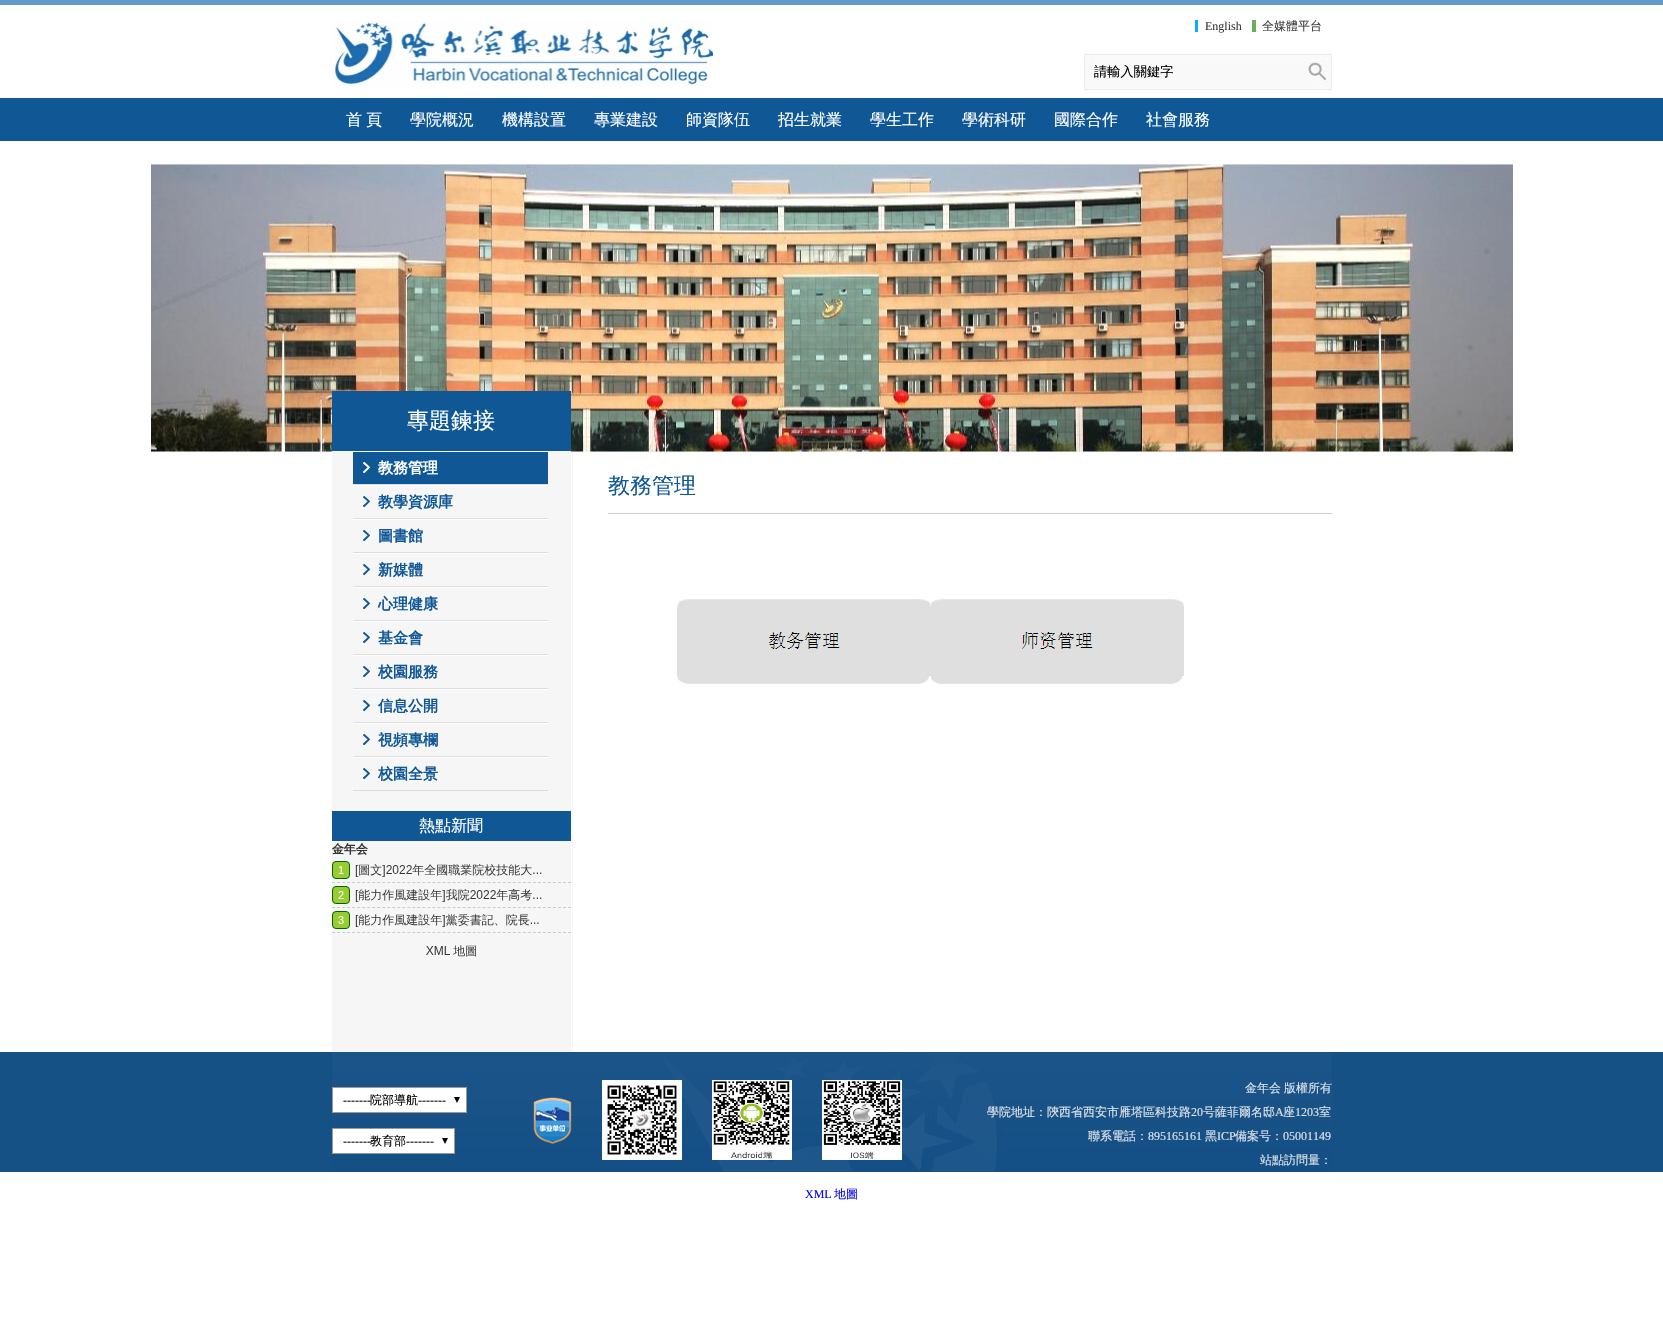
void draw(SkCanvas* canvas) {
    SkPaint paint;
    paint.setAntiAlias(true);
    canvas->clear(0xFFFFFFFF);
    paint.setColor(0xFF639BCD);
    canvas->drawRect(SkRect::MakeXYWH(0, 0, 1663, 5), paint);
    canvas->drawImageRect(SkImages::DeferredFromEncodedData(SkData::MakeFromFileName("img1.png")), SkRect::MakeXYWH(332, 21, 381, 66), SkSamplingOptions());
    paint.setColor(0xFF0FABFE);
    canvas->drawRect(SkRect::MakeXYWH(1195, 20, 3, 12), paint);
    SkFont font1(fontMgr->matchFamilyStyle("Liberation Serif", SkFontStyle::Normal()), 12);
    font1.setSubpixel(true);
    paint.setColor(0xFF393939);
    canvas->drawString("English", 1205, 30, font1, paint);
    paint.setColor(0xFF6AB05A);
    canvas->drawRect(SkRect::MakeXYWH(1252, 20, 4, 12), paint);
    SkFont font2(fontMgr->matchFamilyStyle("WenQuanYi Zen Hei", SkFontStyle(500, SkFontStyle::kNormal_Width, SkFontStyle::kUpright_Slant)), 12);
    font2.setSubpixel(true);
    paint.setColor(0xFF393939);
    canvas->drawString("全媒體平台", 1262, 30, font2, paint);
    canvas->drawImageRect(SkImages::DeferredFromEncodedData(SkData::MakeFromFileName("img2.png")), SkRect::MakeXYWH(1084, 54, 224, 36), SkSamplingOptions());
    SkFont font3(fontMgr->matchFamilyStyle("WenQuanYi Zen Hei", SkFontStyle(500, SkFontStyle::kNormal_Width, SkFontStyle::kUpright_Slant)), 13.25f);
    font3.setSubpixel(true);
    paint.setColor(0xFF000000);
    canvas->drawString("請輸入關鍵字", 1094, 76, font3, paint);
    canvas->drawImageRect(SkImages::DeferredFromEncodedData(SkData::MakeFromFileName("img3.png")), SkRect::MakeXYWH(1308, 54, 24, 36), SkSamplingOptions());
    paint.setColor(0xFF105796);
    canvas->drawRect(SkRect::MakeXYWH(0, 98, 1663, 43), paint);
    SkFont font4(fontMgr->matchFamilyStyle("WenQuanYi Zen Hei", SkFontStyle(500, SkFontStyle::kNormal_Width, SkFontStyle::kUpright_Slant)), 16);
    font4.setSubpixel(true);
    paint.setColor(0xFFFFFFFF);
    canvas->drawString("首", 346, 125, font4, paint);
    canvas->drawString("頁", 366, 125, font4, paint);
    canvas->drawString("學院概況", 410, 125, font4, paint);
    canvas->drawString("機構設置", 502, 125, font4, paint);
    canvas->drawString("專業建設", 594, 125, font4, paint);
    canvas->drawString("師資隊伍", 686, 125, font4, paint);
    canvas->drawString("招生就業", 778, 125, font4, paint);
    canvas->drawString("學生工作", 870, 125, font4, paint);
    canvas->drawString("學術科研", 962, 125, font4, paint);
    canvas->drawString("國際合作", 1054, 125, font4, paint);
    canvas->drawString("社會服務", 1146, 125, font4, paint);
    canvas->drawImageRect(SkImages::DeferredFromEncodedData(SkData::MakeFromFileName("img4.png")), SkRect::MakeXYWH(151, 164, 1362, 288), SkSamplingOptions());
    canvas->drawImageRect(SkImages::DeferredFromEncodedData(SkData::MakeFromFileName("img5.png")), SkRect::MakeXYWH(332, 452, 241, 600), SkSamplingOptions());
    paint.setColor(0xFFF6F6F6);
    canvas->drawRect(SkRect::MakeXYWH(332, 451, 239, 1), paint);
    paint.setColor(0xFF105796);
    canvas->drawRect(SkRect::MakeXYWH(332, 391, 239, 60), paint);
    SkFont font5(fontMgr->matchFamilyStyle("WenQuanYi Zen Hei", SkFontStyle(500, SkFontStyle::kNormal_Width, SkFontStyle::kUpright_Slant)), 22);
    font5.setSubpixel(true);
    paint.setColor(0xFFFFFFFF);
    canvas->drawString("專題鍊接", 407, 428, font5, paint);
    paint.setColor(0xFF105796);
    canvas->drawRect(SkRect::MakeXYWH(353, 452, 195, 32), paint);
    canvas->drawImageRect(SkImages::DeferredFromEncodedData(SkData::MakeFromFileName("img6.png")), SkRect::MakeXYWH(363, 462, 7, 11), SkSamplingOptions());
    paint.setColor(0xFFFFFFFF);
    canvas->drawRect(SkRect::MakeXYWH(353, 451, 195, 1), paint);
    paint.setColor(0xFFDDDDDD);
    canvas->drawRect(SkRect::MakeXYWH(353, 484, 195, 1), paint);
    SkFont font6(fontMgr->matchFamilyStyle("WenQuanYi Zen Hei", SkFontStyle::Bold()), 15);
    font6.setSubpixel(true);
    paint.setColor(0xFFFFFFFF);
    canvas->drawString("教務管理", 378, 473, font6, paint);
    canvas->drawImageRect(SkImages::DeferredFromEncodedData(SkData::MakeFromFileName("img7.png")), SkRect::MakeXYWH(363, 496, 7, 11), SkSamplingOptions());
    canvas->drawRect(SkRect::MakeXYWH(353, 485, 195, 1), paint);
    paint.setColor(0xFFDDDDDD);
    canvas->drawRect(SkRect::MakeXYWH(353, 518, 195, 1), paint);
    paint.setColor(0xFF105796);
    canvas->drawString("教學資源庫", 378, 507, font6, paint);
    canvas->drawImageRect(SkImages::DeferredFromEncodedData(SkData::MakeFromFileName("img7.png")), SkRect::MakeXYWH(363, 530, 7, 11), SkSamplingOptions());
    paint.setColor(0xFFFFFFFF);
    canvas->drawRect(SkRect::MakeXYWH(353, 519, 195, 1), paint);
    paint.setColor(0xFFDDDDDD);
    canvas->drawRect(SkRect::MakeXYWH(353, 552, 195, 1), paint);
    paint.setColor(0xFF105796);
    canvas->drawString("圖書館", 378, 541, font6, paint);
    canvas->drawImageRect(SkImages::DeferredFromEncodedData(SkData::MakeFromFileName("img7.png")), SkRect::MakeXYWH(363, 564, 7, 11), SkSamplingOptions());
    paint.setColor(0xFFFFFFFF);
    canvas->drawRect(SkRect::MakeXYWH(353, 553, 195, 1), paint);
    paint.setColor(0xFFDDDDDD);
    canvas->drawRect(SkRect::MakeXYWH(353, 586, 195, 1), paint);
    paint.setColor(0xFF105796);
    canvas->drawString("新媒體", 378, 575, font6, paint);
    canvas->drawImageRect(SkImages::DeferredFromEncodedData(SkData::MakeFromFileName("img7.png")), SkRect::MakeXYWH(363, 598, 7, 11), SkSamplingOptions());
    paint.setColor(0xFFFFFFFF);
    canvas->drawRect(SkRect::MakeXYWH(353, 587, 195, 1), paint);
    paint.setColor(0xFFDDDDDD);
    canvas->drawRect(SkRect::MakeXYWH(353, 620, 195, 1), paint);
    paint.setColor(0xFF105796);
    canvas->drawString("心理健康", 378, 609, font6, paint);
    canvas->drawImageRect(SkImages::DeferredFromEncodedData(SkData::MakeFromFileName("img7.png")), SkRect::MakeXYWH(363, 632, 7, 11), SkSamplingOptions());
    paint.setColor(0xFFFFFFFF);
    canvas->drawRect(SkRect::MakeXYWH(353, 621, 195, 1), paint);
    paint.setColor(0xFFDDDDDD);
    canvas->drawRect(SkRect::MakeXYWH(353, 654, 195, 1), paint);
    paint.setColor(0xFF105796);
    canvas->drawString("基金會", 378, 643, font6, paint);
    canvas->drawImageRect(SkImages::DeferredFromEncodedData(SkData::MakeFromFileName("img7.png")), SkRect::MakeXYWH(363, 666, 7, 11), SkSamplingOptions());
    paint.setColor(0xFFFFFFFF);
    canvas->drawRect(SkRect::MakeXYWH(353, 655, 195, 1), paint);
    paint.setColor(0xFFDDDDDD);
    canvas->drawRect(SkRect::MakeXYWH(353, 688, 195, 1), paint);
    paint.setColor(0xFF105796);
    canvas->drawString("校園服務", 378, 677, font6, paint);
    canvas->drawImageRect(SkImages::DeferredFromEncodedData(SkData::MakeFromFileName("img7.png")), SkRect::MakeXYWH(363, 700, 7, 11), SkSamplingOptions());
    paint.setColor(0xFFFFFFFF);
    canvas->drawRect(SkRect::MakeXYWH(353, 689, 195, 1), paint);
    paint.setColor(0xFFDDDDDD);
    canvas->drawRect(SkRect::MakeXYWH(353, 722, 195, 1), paint);
    paint.setColor(0xFF105796);
    canvas->drawString("信息公開", 378, 711, font6, paint);
    canvas->drawImageRect(SkImages::DeferredFromEncodedData(SkData::MakeFromFileName("img7.png")), SkRect::MakeXYWH(363, 734, 7, 11), SkSamplingOptions());
    paint.setColor(0xFFFFFFFF);
    canvas->drawRect(SkRect::MakeXYWH(353, 723, 195, 1), paint);
    paint.setColor(0xFFDDDDDD);
    canvas->drawRect(SkRect::MakeXYWH(353, 756, 195, 1), paint);
    paint.setColor(0xFF105796);
    canvas->drawString("視頻專欄", 378, 745, font6, paint);
    canvas->drawImageRect(SkImages::DeferredFromEncodedData(SkData::MakeFromFileName("img7.png")), SkRect::MakeXYWH(363, 768, 7, 11), SkSamplingOptions());
    paint.setColor(0xFFFFFFFF);
    canvas->drawRect(SkRect::MakeXYWH(353, 757, 195, 1), paint);
    paint.setColor(0xFFDDDDDD);
    canvas->drawRect(SkRect::MakeXYWH(353, 790, 195, 1), paint);
    paint.setColor(0xFF105796);
    canvas->drawString("校園全景", 378, 779, font6, paint);
    canvas->drawRect(SkRect::MakeXYWH(332, 811, 239, 30), paint);
    paint.setColor(0xFFFFFFFF);
    canvas->drawString("熱點新聞", 419, 831, font4, paint);
    canvas->drawImageRect(SkImages::DeferredFromEncodedData(SkData::MakeFromFileName("img8.png")), SkRect::MakeXYWH(332, 843, 239, 114), SkSamplingOptions());
    paint.setColor(0xFFCCCCCC);
    canvas->drawRect(SkRect::MakeXYWH(608, 513, 724, 1), paint);
    paint.setColor(0xFF105796);
    canvas->drawString("教務管理", 608, 493, font5, paint);
    canvas->drawImageRect(SkImages::DeferredFromEncodedData(SkData::MakeFromFileName("img9.png")), SkRect::MakeXYWH(677, 599, 254, 85), SkSamplingOptions());
    canvas->drawImageRect(SkImages::DeferredFromEncodedData(SkData::MakeFromFileName("img10.png")), SkRect::MakeXYWH(931, 599, 253, 85), SkSamplingOptions());
    paint.setColor(0xFF165186);
    canvas->drawRect(SkRect::MakeXYWH(0, 1052, 1663, 120), paint);
    canvas->drawImageRect(SkImages::DeferredFromEncodedData(SkData::MakeFromFileName("img11.png")), SkRect::MakeXYWH(332, 1052, 1000, 120), SkSamplingOptions());
    paint.setColor(0xFFFFFFFF);
    canvas->drawRect(SkRect::MakeXYWH(333, 1088, 133, 24), paint);
    canvas->drawImageRect(SkImages::DeferredFromEncodedData(SkData::MakeFromFileName("img12.png")), SkRect::MakeXYWH(454, 1097, 6, 6), SkSamplingOptions());
    paint.setStyle(SkPaint::kStroke_Style);
    paint.setStrokeWidth(1);
    paint.setColor(0xFF999999);
    canvas->drawRect(SkRect::MakeXYWH(332.5f, 1087.5f, 134, 25), paint);
    paint.setStyle(SkPaint::kFill_Style);
    paint.setColor(0xFF000000);
    canvas->drawString("-------", 343, 1104, font1, paint);
    canvas->drawString("院部導航", 370, 1104, font2, paint);
    canvas->drawString("-------", 418, 1104, font1, paint);
    paint.setColor(0xFFFFFFFF);
    canvas->drawRect(SkRect::MakeXYWH(333, 1129, 121, 24), paint);
    canvas->drawImageRect(SkImages::DeferredFromEncodedData(SkData::MakeFromFileName("img12.png")), SkRect::MakeXYWH(442, 1138, 6, 6), SkSamplingOptions());
    paint.setStyle(SkPaint::kStroke_Style);
    paint.setColor(0xFF999999);
    canvas->drawRect(SkRect::MakeXYWH(332.5f, 1128.5f, 122, 25), paint);
    paint.setStyle(SkPaint::kFill_Style);
    paint.setColor(0xFF000000);
    canvas->drawString("-------", 343, 1145, font1, paint);
    canvas->drawString("教育部", 370, 1145, font2, paint);
    canvas->drawString("-------", 406, 1145, font1, paint);
    canvas->drawImageRect(SkImages::DeferredFromEncodedData(SkData::MakeFromFileName("img13.png")), SkRect::MakeXYWH(533, 1097, 39, 47), SkSamplingOptions());
    canvas->drawImageRect(SkImages::DeferredFromEncodedData(SkData::MakeFromFileName("img14.png")), SkRect::MakeXYWH(602, 1080, 80, 80), SkSamplingOptions());
    canvas->drawImageRect(SkImages::DeferredFromEncodedData(SkData::MakeFromFileName("img15.png")), SkRect::MakeXYWH(712, 1080, 80, 80), SkSamplingOptions());
    canvas->drawImageRect(SkImages::DeferredFromEncodedData(SkData::MakeFromFileName("img16.png")), SkRect::MakeXYWH(822, 1080, 80, 80), SkSamplingOptions());
    paint.setColor(0xFFDEE3EA);
    canvas->drawString("金年会", 1245, 1092, font2, paint);
    canvas->drawString("版權所有", 1284, 1092, font2, paint);
    canvas->drawString("學院地址：陝西省西安市雁塔區科技路", 987, 1116, font2, paint);
    canvas->drawString("20", 1191, 1116, font1, paint);
    canvas->drawString("号薩菲爾名邸", 1203, 1116, font2, paint);
    canvas->drawString("A", 1275, 1116, font1, paint);
    canvas->drawString("座", 1283, 1116, font2, paint);
    canvas->drawString("1203", 1295, 1116, font1, paint);
    canvas->drawString("室", 1319, 1116, font2, paint);
    canvas->drawString("聯系電話：", 1088, 1140, font2, paint);
    canvas->drawString("895165161", 1148, 1140, font1, paint);
    canvas->drawString("黑", 1205, 1140, font2, paint);
    canvas->drawString("ICP", 1217, 1140, font1, paint);
    canvas->drawString("備案号：", 1235, 1140, font2, paint);
    canvas->drawString("05001149", 1283, 1140, font1, paint);
    canvas->drawString("站點訪問量：", 1260, 1164, font2, paint);
    paint.setColor(0xFF0000EE);
    canvas->drawString("XML", 805, 1198, font1, paint);
    canvas->drawString("地圖", 834, 1198, font2, paint);
}
